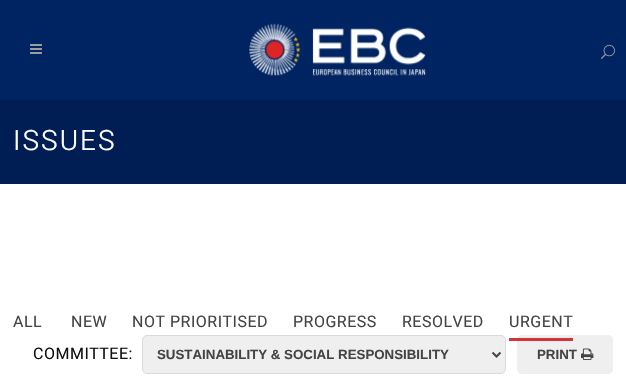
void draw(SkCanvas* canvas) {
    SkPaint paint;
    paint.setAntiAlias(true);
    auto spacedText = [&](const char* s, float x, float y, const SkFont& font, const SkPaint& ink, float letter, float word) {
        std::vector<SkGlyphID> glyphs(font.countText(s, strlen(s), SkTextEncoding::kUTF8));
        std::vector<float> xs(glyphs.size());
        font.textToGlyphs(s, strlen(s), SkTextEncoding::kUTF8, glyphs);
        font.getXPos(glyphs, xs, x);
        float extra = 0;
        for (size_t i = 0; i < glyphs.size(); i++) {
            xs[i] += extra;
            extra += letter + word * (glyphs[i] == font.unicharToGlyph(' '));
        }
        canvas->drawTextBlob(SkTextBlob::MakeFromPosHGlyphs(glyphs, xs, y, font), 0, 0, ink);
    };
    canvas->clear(0xFFFFFFFF);
    paint.setColor(0xFF002361);
    canvas->drawRect(SkRect::MakeXYWH(0, 0, 626, 100), paint);
    canvas->drawImageRect(SkImages::DeferredFromEncodedData(SkData::MakeFromFileName("img1.png")), SkRect::MakeXYWH(30, 44, 12, 10), SkSamplingOptions());
    canvas->drawImageRect(SkImages::DeferredFromEncodedData(SkData::MakeFromFileName("img2.png")), SkRect::MakeXYWH(249, 23, 177, 53), SkSamplingOptions());
    canvas->drawImageRect(SkImages::DeferredFromEncodedData(SkData::MakeFromFileName("img3.png")), SkRect::MakeXYWH(601, 44, 14, 15), SkSamplingOptions());
    paint.setColor(0xFF001E54);
    canvas->drawRect(SkRect::MakeXYWH(0, 100, 626, 84), paint);
    SkFont font1(fontMgr->matchFamilyStyle("Heebo", SkFontStyle(300, SkFontStyle::kNormal_Width, SkFontStyle::kUpright_Slant)), 28);
    font1.setSubpixel(true);
    paint.setColor(0xFFFFFFFF);
    spacedText("ISSUES", 13, 150, font1, paint, 2, 0);
    SkFont font2(fontMgr->matchFamilyStyle("Heebo", SkFontStyle::Normal()), 16);
    font2.setSubpixel(true);
    paint.setColor(0xFF444444);
    spacedText("ALL", 13, 327, font2, paint, 0.5f, 0);
    spacedText("NEW", 71, 327, font2, paint, 0.5f, 0);
    spacedText("NOT PRIORITISED", 132, 327, font2, paint, 0.5f, 0);
    spacedText("PROGRESS", 293, 327, font2, paint, 0.5f, 0);
    spacedText("RESOLVED", 402, 327, font2, paint, 0.5f, 0);
    spacedText("URGENT", 509, 327, font2, paint, 0.5f, 0);
    paint.setColor(0xFFEFEFEF);
    canvas->drawRoundRect(SkRect::MakeXYWH(517, 335, 96, 39), 5, 5, paint);
    paint.setColor(0xFFD43439);
    canvas->drawRect(SkRect::MakeXYWH(509, 338, 64, 3), paint);
    paint.setColor(0xFF111111);
    spacedText("COMMITTEE:", 33, 359, font2, paint, 0.5f, 0);
    paint.setColor(0xFFEFEFEF);
    canvas->drawRoundRect(SkRect::MakeXYWH(142.5f, 335.5f, 363, 38), 4.5f, 4.5f, paint);
    paint.setStyle(SkPaint::kStroke_Style);
    paint.setStrokeWidth(1);
    paint.setColor(0xFFDADADA);
    canvas->drawRoundRect(SkRect::MakeXYWH(142.5f, 335.5f, 363, 38), 4.5f, 4.5f, paint);
    paint.setStrokeWidth(2);
    paint.setColor(0xFF444444);
    canvas->drawPath(SkPathBuilder().moveTo(492.5f, 352.5f).lineTo(496.5f, 356.5f).lineTo(500.5f, 352.5f).detach(), paint);
    SkFont font3(fontMgr->matchFamilyStyle("Liberation Sans", SkFontStyle::Bold()), 13.3f);
    font3.setSubpixel(true);
    paint.setStyle(SkPaint::kFill_Style);
    canvas->drawString("SUSTAINABILITY & SOCIAL RESPONSIBILITY", 157, 359, font3, paint);
    canvas->drawString("PRINT", 537, 359, font3, paint);
    canvas->drawImageRect(SkImages::DeferredFromEncodedData(SkData::MakeFromFileName("img4.png")), SkRect::MakeXYWH(581, 348, 13, 12), SkSamplingOptions());
}
